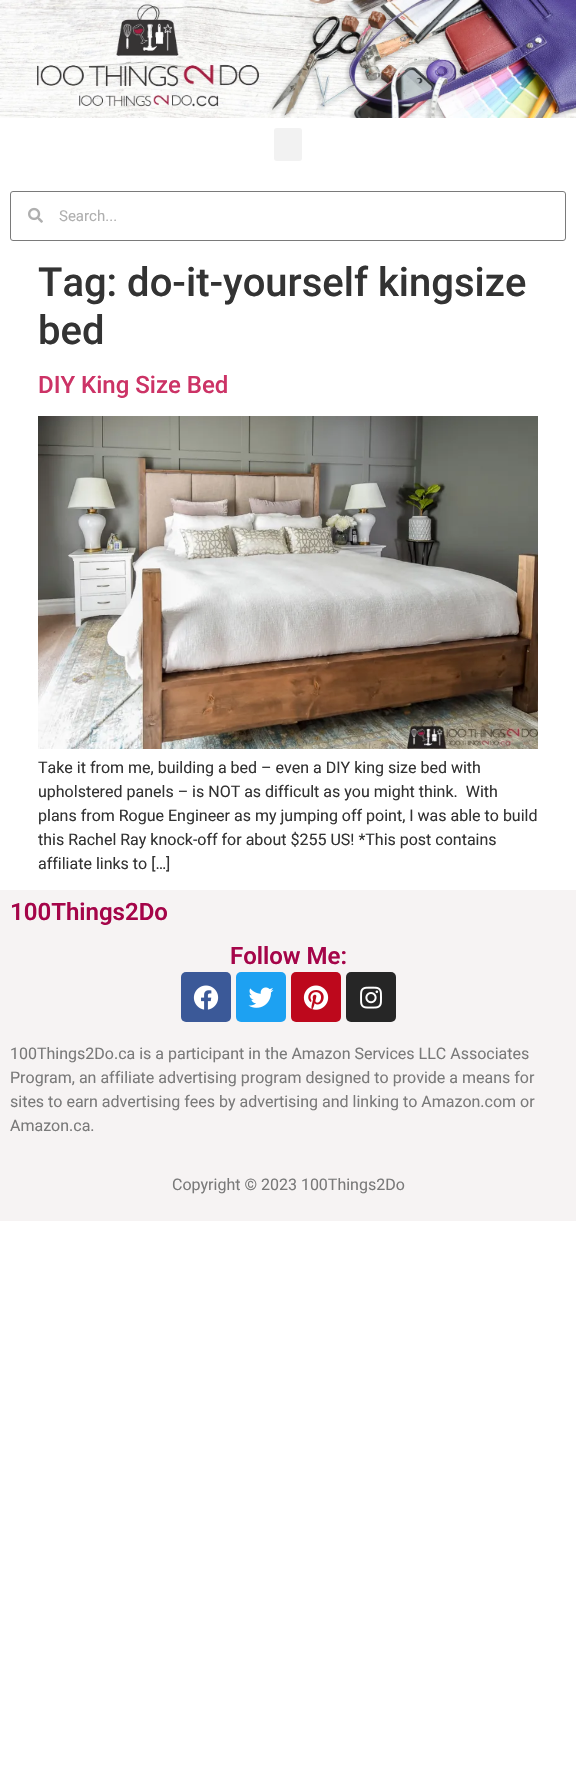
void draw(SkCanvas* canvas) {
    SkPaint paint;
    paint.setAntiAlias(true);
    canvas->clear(0xFFFFFFFF);
    canvas->drawImageRect(SkImages::DeferredFromEncodedData(SkData::MakeFromFileName("img1.png")), SkRect::MakeXYWH(0, 0, 576, 118), SkSamplingOptions());
    paint.setColor(0xFFF2F2F2);
    canvas->drawRoundRect(SkRect::MakeXYWH(274, 128, 28, 33), 3, 3, paint);
    paint.setStyle(SkPaint::kStroke_Style);
    paint.setStrokeWidth(1);
    paint.setColor(0xFF7A7A7A);
    canvas->drawRoundRect(SkRect::MakeXYWH(10.5f, 191.5f, 555, 49), 2.5f, 2.5f, paint);
    canvas->drawImageRect(SkImages::DeferredFromEncodedData(SkData::MakeFromFileName("img2.png")), SkRect::MakeXYWH(28, 207, 15, 16), SkSamplingOptions());
    SkFont font1(fontMgr->matchFamilyStyle("Roboto", SkFontStyle::Normal()), 15);
    font1.setSubpixel(true);
    paint.setStyle(SkPaint::kFill_Style);
    paint.setColor(0xFFAFAFAF);
    canvas->drawString("Search...", 59, 221, font1, paint);
    SkFont font2(fontMgr->matchFamilyStyle("Roboto", SkFontStyle(500, SkFontStyle::kNormal_Width, SkFontStyle::kUpright_Slant)), 40);
    font2.setSubpixel(true);
    paint.setColor(0xFF333333);
    canvas->drawString("Tag: do-it-yourself kingsize", 38, 296, font2, paint);
    canvas->drawString("bed", 38, 344, font2, paint);
    SkFont font3(fontMgr->matchFamilyStyle("Roboto", SkFontStyle(500, SkFontStyle::kNormal_Width, SkFontStyle::kUpright_Slant)), 24);
    font3.setSubpixel(true);
    paint.setColor(0xFFCC3366);
    canvas->drawString("DIY King Size Bed", 38, 393, font3, paint);
    canvas->drawImageRect(SkImages::DeferredFromEncodedData(SkData::MakeFromFileName("img3.png")), SkRect::MakeXYWH(38, 416, 500, 333), SkSamplingOptions());
    SkFont font4(fontMgr->matchFamilyStyle("Roboto", SkFontStyle::Normal()), 16);
    font4.setSubpixel(true);
    paint.setColor(0xFF333333);
    canvas->drawString("Take it from me, building a bed – even a DIY king size bed with", 38, 773, font4, paint);
    canvas->drawString("upholstered panels – is NOT as difficult as you might think.  With", 38, 797, font4, paint);
    canvas->drawString("plans from Rogue Engineer as my jumping off point, I was able to build", 38, 821, font4, paint);
    canvas->drawString("this Rachel Ray knock-off for about $255 US! *This post contains", 38, 845, font4, paint);
    canvas->drawString("affiliate links to […]", 38, 869, font4, paint);
    paint.setColor(0xFFF6F3F3);
    canvas->drawRect(SkRect::MakeXYWH(0, 890, 576, 331), paint);
    SkFont font5(fontMgr->matchFamilyStyle("Roboto", SkFontStyle(600, SkFontStyle::kNormal_Width, SkFontStyle::kUpright_Slant)), 24);
    font5.setSubpixel(true);
    paint.setColor(0xFFA50549);
    canvas->drawString("100Things2Do", 10, 920, font5, paint);
    canvas->drawString("Follow Me:", 230, 964, font5, paint);
    paint.setColor(0xFF3B5998);
    canvas->drawRoundRect(SkRect::MakeXYWH(181, 972, 50, 50), 5, 5, paint);
    canvas->drawImageRect(SkImages::DeferredFromEncodedData(SkData::MakeFromFileName("img4.png")), SkRect::MakeXYWH(193, 985, 26, 25), SkSamplingOptions());
    paint.setColor(0xFF1DA1F2);
    canvas->drawRoundRect(SkRect::MakeXYWH(236, 972, 50, 50), 5, 5, paint);
    canvas->drawImageRect(SkImages::DeferredFromEncodedData(SkData::MakeFromFileName("img5.png")), SkRect::MakeXYWH(248, 987, 26, 21), SkSamplingOptions());
    paint.setColor(0xFFBD081C);
    canvas->drawRoundRect(SkRect::MakeXYWH(291, 972, 50, 50), 5, 5, paint);
    canvas->drawImageRect(SkImages::DeferredFromEncodedData(SkData::MakeFromFileName("img6.png")), SkRect::MakeXYWH(303, 985, 26, 25), SkSamplingOptions());
    paint.setColor(0xFF262626);
    canvas->drawRoundRect(SkRect::MakeXYWH(346, 972, 50, 50), 5, 5, paint);
    canvas->drawImageRect(SkImages::DeferredFromEncodedData(SkData::MakeFromFileName("img7.png")), SkRect::MakeXYWH(360, 986, 22, 23), SkSamplingOptions());
    paint.setColor(0xFF7A7A7A);
    canvas->drawString("100Things2Do.ca is a participant in the Amazon Services LLC Associates", 10, 1059, font4, paint);
    canvas->drawString("Program, an affiliate advertising program designed to provide a means for", 10, 1083, font4, paint);
    canvas->drawString("sites to earn advertising fees by advertising and linking to Amazon.com or", 10, 1107, font4, paint);
    canvas->drawString("Amazon.ca.", 10, 1131, font4, paint);
    canvas->drawString("Copyright © 2023 100Things2Do", 172, 1190, font4, paint);
}
